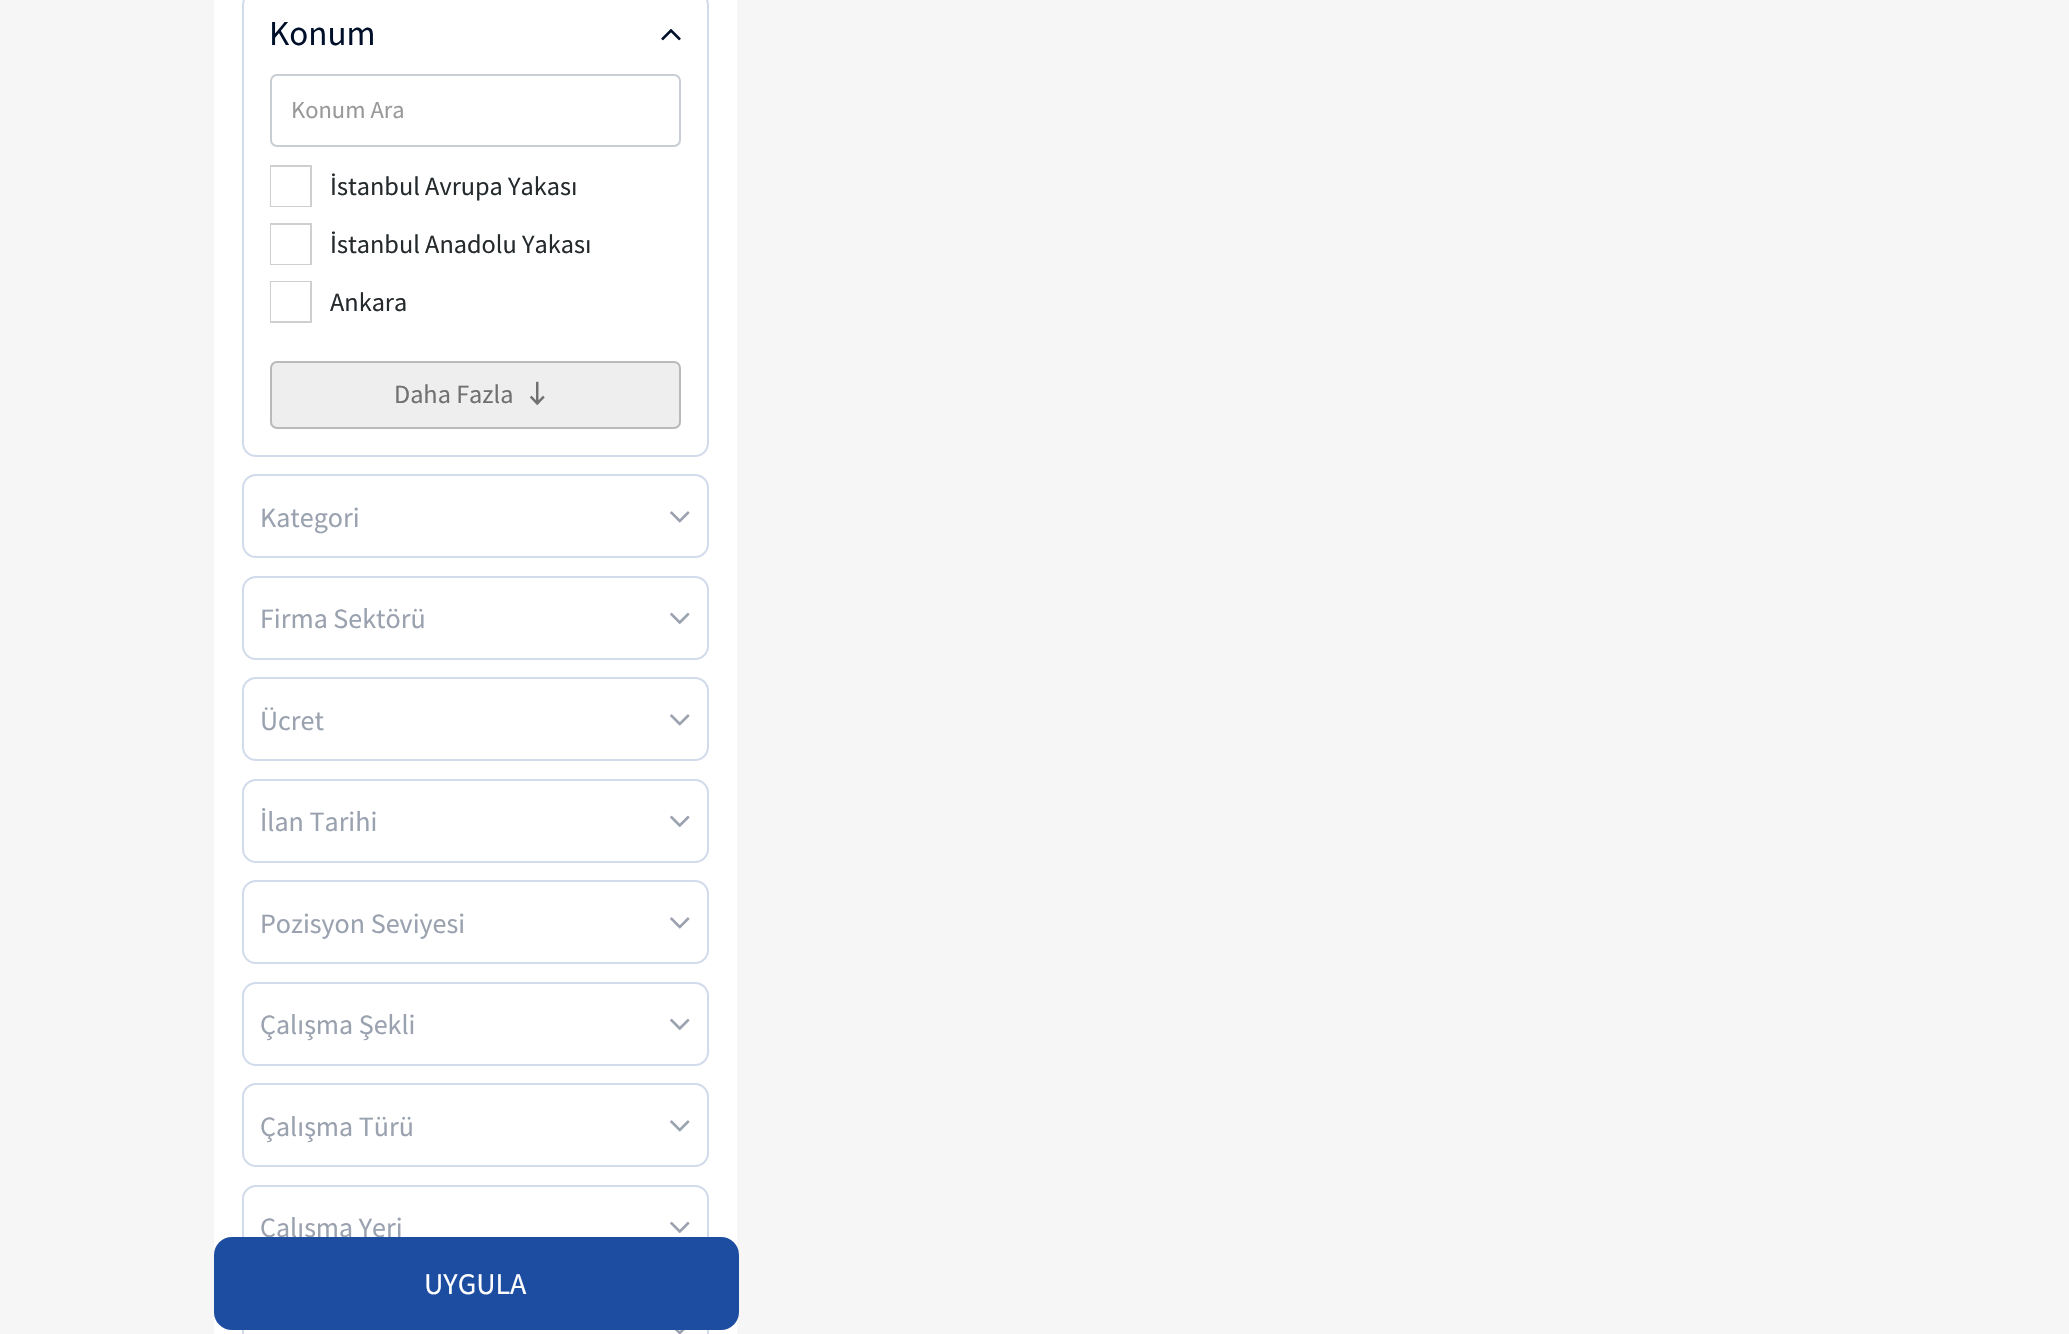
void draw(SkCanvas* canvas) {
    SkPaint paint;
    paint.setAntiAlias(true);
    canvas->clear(0xFFF6F6F6);
    paint.setColor(0xFFFFFFFF);
    canvas->drawRect(SkRect::MakeXYWH(214, 0, 523, 1334), paint);
    paint.setStyle(SkPaint::kStroke_Style);
    paint.setStrokeWidth(2);
    paint.setColor(0xFFD2DBEC);
    canvas->drawRoundRect(SkRect::MakeXYWH(243, -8, 465, 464), 13, 13, paint);
    SkFont font1(fontMgr->matchFamilyStyle("Source Sans Pro", SkFontStyle::Normal()), 35);
    font1.setSubpixel(true);
    paint.setStyle(SkPaint::kFill_Style);
    paint.setColor(0xFF000F29);
    canvas->drawString("Konum", 269, 45, font1, paint);
    canvas->drawImageRect(SkImages::DeferredFromEncodedData(SkData::MakeFromFileName("img1.png")), SkRect::MakeXYWH(661, 29, 20, 12), SkSamplingOptions());
    paint.setStyle(SkPaint::kStroke_Style);
    paint.setColor(0xFFC8CED4);
    canvas->drawRoundRect(SkRect::MakeXYWH(271, 75, 409, 71), 6, 6, paint);
    SkFont font2(fontMgr->matchFamilyStyle("Source Sans Pro", SkFontStyle::Normal()), 24.5f);
    font2.setSubpixel(true);
    paint.setStyle(SkPaint::kFill_Style);
    paint.setColor(0xFF999999);
    canvas->drawString("Konum Ara", 291, 118, font2, paint);
    paint.setColor(0xFFCFCFCF);
    canvas->drawPath(SkPathBuilder().moveTo(270, 165).lineTo(270, 207).lineTo(312, 207).lineTo(312, 165).close().moveTo(310, 206).lineTo(271, 206).lineTo(271, 167).lineTo(310, 167).close().detach(), paint);
    SkFont font3(fontMgr->matchFamilyStyle("Source Sans Pro", SkFontStyle::Normal()), 26.25f);
    font3.setSubpixel(true);
    paint.setColor(0xFF252A2D);
    canvas->drawString("İstanbul Avrupa Yakası", 330, 195, font3, paint);
    paint.setColor(0xFFCFCFCF);
    canvas->drawPath(SkPathBuilder().moveTo(270, 223).lineTo(270, 265).lineTo(312, 265).lineTo(312, 223).close().moveTo(310, 264).lineTo(271, 264).lineTo(271, 225).lineTo(310, 225).close().detach(), paint);
    paint.setColor(0xFF252A2D);
    canvas->drawString("İstanbul Anadolu Yakası", 330, 253, font3, paint);
    paint.setColor(0xFFCFCFCF);
    canvas->drawPath(SkPathBuilder().moveTo(270, 281).lineTo(270, 323).lineTo(312, 323).lineTo(312, 281).close().moveTo(310, 321).lineTo(271, 321).lineTo(271, 282).lineTo(310, 282).close().detach(), paint);
    paint.setColor(0xFF252A2D);
    canvas->drawString("Ankara", 330, 311, font3, paint);
    paint.setColor(0xFFEEEEEE);
    canvas->drawRoundRect(SkRect::MakeXYWH(271, 362, 409, 66), 6, 6, paint);
    paint.setStyle(SkPaint::kStroke_Style);
    paint.setColor(0xFFB9B9B9);
    canvas->drawRoundRect(SkRect::MakeXYWH(271, 362, 409, 66), 6, 6, paint);
    paint.setStyle(SkPaint::kFill_Style);
    paint.setColor(0xFF717171);
    canvas->drawString("Daha Fazla", 394, 403, font3, paint);
    canvas->drawImageRect(SkImages::DeferredFromEncodedData(SkData::MakeFromFileName("img2.png")), SkRect::MakeXYWH(529, 381, 16, 25), SkSamplingOptions());
    paint.setStyle(SkPaint::kStroke_Style);
    paint.setColor(0xFFD2DBEC);
    canvas->drawRoundRect(SkRect::MakeXYWH(243, 475, 465, 82), 13, 13, paint);
    SkFont font4(fontMgr->matchFamilyStyle("Source Sans Pro", SkFontStyle::Normal()), 28);
    font4.setSubpixel(true);
    paint.setStyle(SkPaint::kFill_Style);
    paint.setColor(0xFF9AA2AF);
    canvas->drawString("Kategori", 260, 527, font4, paint);
    canvas->drawImageRect(SkImages::DeferredFromEncodedData(SkData::MakeFromFileName("img3.png")), SkRect::MakeXYWH(670, 511, 20, 12), SkSamplingOptions());
    paint.setStyle(SkPaint::kStroke_Style);
    paint.setColor(0xFFD2DBEC);
    canvas->drawRoundRect(SkRect::MakeXYWH(243, 577, 465, 82), 13, 13, paint);
    paint.setStyle(SkPaint::kFill_Style);
    paint.setColor(0xFF9AA2AF);
    canvas->drawString("Firma Sektörü", 260, 628, font4, paint);
    canvas->drawImageRect(SkImages::DeferredFromEncodedData(SkData::MakeFromFileName("img4.png")), SkRect::MakeXYWH(670, 612, 20, 12), SkSamplingOptions());
    paint.setStyle(SkPaint::kStroke_Style);
    paint.setColor(0xFFD2DBEC);
    canvas->drawRoundRect(SkRect::MakeXYWH(243, 678, 465, 82), 13, 13, paint);
    paint.setStyle(SkPaint::kFill_Style);
    paint.setColor(0xFF9AA2AF);
    canvas->drawString("Ücret", 260, 730, font4, paint);
    canvas->drawImageRect(SkImages::DeferredFromEncodedData(SkData::MakeFromFileName("img3.png")), SkRect::MakeXYWH(670, 714, 20, 12), SkSamplingOptions());
    paint.setStyle(SkPaint::kStroke_Style);
    paint.setColor(0xFFD2DBEC);
    canvas->drawRoundRect(SkRect::MakeXYWH(243, 780, 465, 82), 13, 13, paint);
    paint.setStyle(SkPaint::kFill_Style);
    paint.setColor(0xFF9AA2AF);
    canvas->drawString("İlan Tarihi", 260, 831, font4, paint);
    canvas->drawImageRect(SkImages::DeferredFromEncodedData(SkData::MakeFromFileName("img4.png")), SkRect::MakeXYWH(670, 815, 20, 12), SkSamplingOptions());
    paint.setStyle(SkPaint::kStroke_Style);
    paint.setColor(0xFFD2DBEC);
    canvas->drawRoundRect(SkRect::MakeXYWH(243, 881, 465, 82), 13, 13, paint);
    paint.setStyle(SkPaint::kFill_Style);
    paint.setColor(0xFF9AA2AF);
    canvas->drawString("Pozisyon Seviyesi", 260, 933, font4, paint);
    canvas->drawImageRect(SkImages::DeferredFromEncodedData(SkData::MakeFromFileName("img3.png")), SkRect::MakeXYWH(670, 917, 20, 12), SkSamplingOptions());
    paint.setStyle(SkPaint::kStroke_Style);
    paint.setColor(0xFFD2DBEC);
    canvas->drawRoundRect(SkRect::MakeXYWH(243, 983, 465, 82), 13, 13, paint);
    paint.setStyle(SkPaint::kFill_Style);
    paint.setColor(0xFF9AA2AF);
    canvas->drawString("Çalışma Şekli", 260, 1034, font4, paint);
    canvas->drawImageRect(SkImages::DeferredFromEncodedData(SkData::MakeFromFileName("img4.png")), SkRect::MakeXYWH(670, 1018, 20, 12), SkSamplingOptions());
    paint.setStyle(SkPaint::kStroke_Style);
    paint.setColor(0xFFD2DBEC);
    canvas->drawRoundRect(SkRect::MakeXYWH(243, 1084, 465, 82), 13, 13, paint);
    paint.setStyle(SkPaint::kFill_Style);
    paint.setColor(0xFF9AA2AF);
    canvas->drawString("Çalışma Türü", 260, 1136, font4, paint);
    canvas->drawImageRect(SkImages::DeferredFromEncodedData(SkData::MakeFromFileName("img3.png")), SkRect::MakeXYWH(670, 1120, 20, 12), SkSamplingOptions());
    paint.setStyle(SkPaint::kStroke_Style);
    paint.setColor(0xFFD2DBEC);
    canvas->drawRoundRect(SkRect::MakeXYWH(243, 1186, 465, 82), 13, 13, paint);
    paint.setStyle(SkPaint::kFill_Style);
    paint.setColor(0xFF9AA2AF);
    canvas->drawString("Çalışma Yeri", 260, 1237, font4, paint);
    canvas->drawImageRect(SkImages::DeferredFromEncodedData(SkData::MakeFromFileName("img4.png")), SkRect::MakeXYWH(670, 1221, 20, 12), SkSamplingOptions());
    paint.setStyle(SkPaint::kStroke_Style);
    paint.setColor(0xFFD2DBEC);
    canvas->drawRect(SkRect::MakeXYWH(243, 1287, 465, 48), paint);
    paint.setStyle(SkPaint::kFill_Style);
    paint.setColor(0xFF1C4DA1);
    canvas->drawRoundRect(SkRect::MakeXYWH(214, 1237, 525, 93), 18, 18, paint);
    SkFont font5(fontMgr->matchFamilyStyle("Source Sans Pro", SkFontStyle::Normal()), 30);
    font5.setSubpixel(true);
    paint.setColor(0xFFFFFFFF);
    canvas->drawString("UYGULA", 424, 1294, font5, paint);
    canvas->drawImageRect(SkImages::DeferredFromEncodedData(SkData::MakeFromFileName("img5.png")), SkRect::MakeXYWH(675, 1330, 10, 4), SkSamplingOptions());
}
